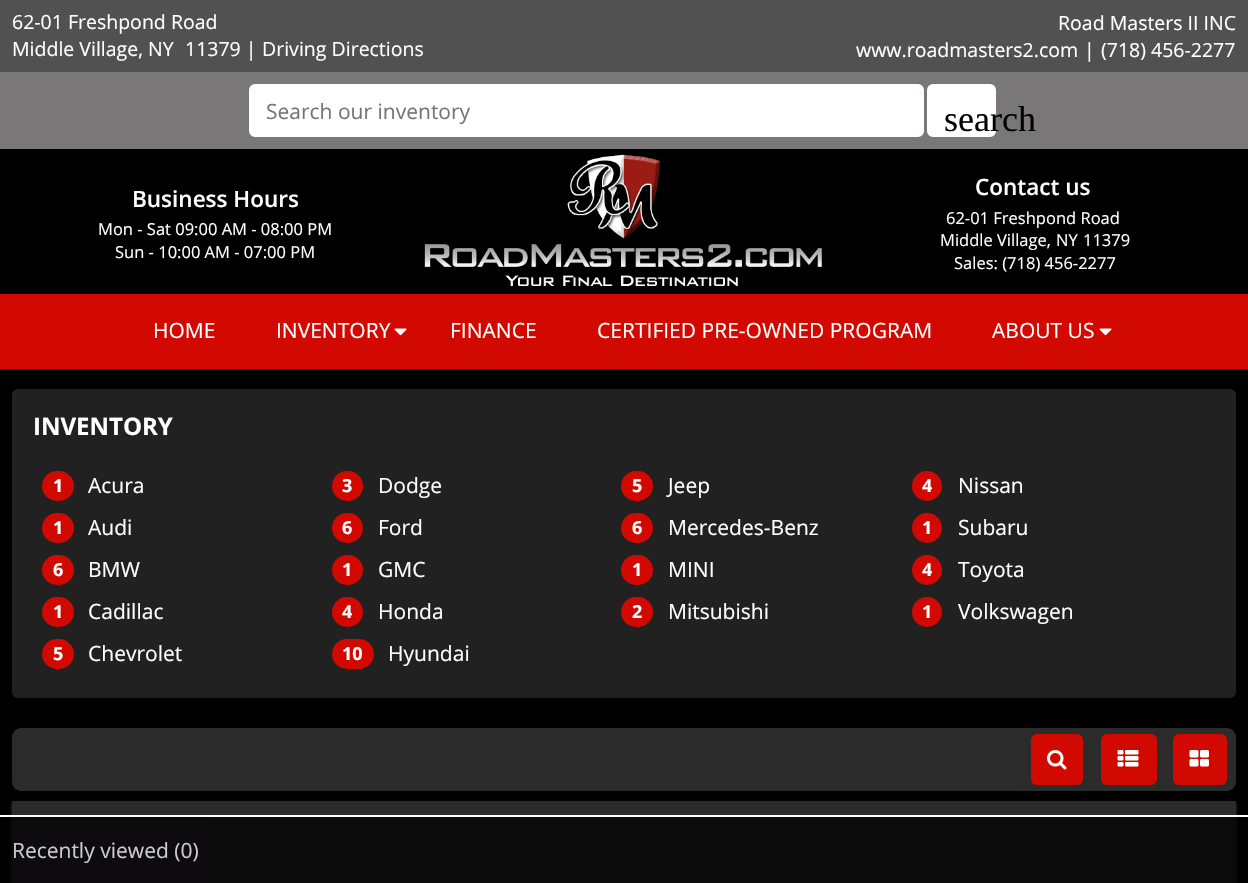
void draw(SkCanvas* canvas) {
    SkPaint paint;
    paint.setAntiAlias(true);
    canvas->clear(0xFF000000);
    paint.setColor(0xFF515151);
    canvas->drawRect(SkRect::MakeXYWH(0, 0, 1248, 72), paint);
    SkFont font1(fontMgr->matchFamilyStyle("Open Sans", SkFontStyle::Normal()), 19.5f);
    font1.setSubpixel(true);
    paint.setColor(0xFFFFFFFF);
    canvas->drawString("62-01 Freshpond Road", 12, 29, font1, paint);
    canvas->drawString("Middle Village, NY", 12, 56, font1, paint);
    canvas->drawString("11379 |", 185, 56, font1, paint);
    canvas->drawString("Driving Directions", 262, 56, font1, paint);
    canvas->drawString("Road Masters II INC", 1058, 30, font1, paint);
    canvas->drawString("www.roadmasters2.com", 856, 57, font1, paint);
    canvas->drawString("|", 1084, 57, font1, paint);
    canvas->drawString("(718) 456-2277", 1101, 57, font1, paint);
    paint.setColor(0xFF797777);
    canvas->drawRect(SkRect::MakeXYWH(0, 72, 1248, 77), paint);
    paint.setColor(0xFFFFFFFF);
    canvas->drawRoundRect(SkRect::MakeXYWH(250, 85, 673, 51), 5, 5, paint);
    paint.setStyle(SkPaint::kStroke_Style);
    paint.setStrokeWidth(2);
    canvas->drawRoundRect(SkRect::MakeXYWH(250, 85, 673, 51), 5, 5, paint);
    SkFont font2(fontMgr->matchFamilyStyle("Open Sans", SkFontStyle::Normal()), 21);
    font2.setSubpixel(true);
    paint.setStyle(SkPaint::kFill_Style);
    paint.setColor(0xFF757575);
    canvas->drawString("Search our inventory", 266, 119, font2, paint);
    paint.setColor(0xFFFFFFFF);
    canvas->drawRoundRect(SkRect::MakeXYWH(928, 85, 67, 51), 5, 5, paint);
    paint.setStyle(SkPaint::kStroke_Style);
    canvas->drawRoundRect(SkRect::MakeXYWH(928, 85, 67, 51), 5, 5, paint);
    SkFont font3(fontMgr->matchFamilyStyle("Liberation Serif", SkFontStyle::Normal()), 36);
    font3.setSubpixel(true);
    paint.setStyle(SkPaint::kFill_Style);
    paint.setColor(0xFF000000);
    canvas->drawString("search", 944, 131, font3, paint);
    SkFont font4(fontMgr->matchFamilyStyle("Open Sans", SkFontStyle(600, SkFontStyle::kNormal_Width, SkFontStyle::kUpright_Slant)), 22.5f);
    font4.setSubpixel(true);
    paint.setColor(0xFFFFFFFF);
    canvas->drawString("Business Hours", 132, 207, font4, paint);
    SkFont font5(fontMgr->matchFamilyStyle("Open Sans", SkFontStyle::Normal()), 16.5f);
    font5.setSubpixel(true);
    canvas->drawString("Mon - Sat 09:00 AM - 08:00 PM", 98, 235, font5, paint);
    canvas->drawString("Sun - 10:00 AM - 07:00 PM", 115, 258, font5, paint);
    canvas->drawImageRect(SkImages::DeferredFromEncodedData(SkData::MakeFromFileName("img1.png")), SkRect::MakeXYWH(424, 154, 399, 132), SkSamplingOptions());
    canvas->drawString("Contact us", 975, 195, font4, paint);
    canvas->drawString("62-01 Freshpond Road", 946, 224, font5, paint);
    canvas->drawString("Middle Village,", 940, 246, font5, paint);
    canvas->drawString("NY", 1056, 246, font5, paint);
    canvas->drawString("11379", 1083, 246, font5, paint);
    canvas->drawString("Sales: (718) 456-2277", 954, 269, font5, paint);
    paint.setColor(0xFFD20900);
    canvas->drawRect(SkRect::MakeXYWH(0, 294, 1248, 75), paint);
    paint.setColor(0xFFFFFFFF);
    canvas->drawString("HOME", 153, 338, font2, paint);
    canvas->drawString("INVENTORY", 276, 338, font2, paint);
    canvas->drawImageRect(SkImages::DeferredFromEncodedData(SkData::MakeFromFileName("img2.png")), SkRect::MakeXYWH(394, 328, 13, 8), SkSamplingOptions());
    canvas->drawString("FINANCE", 450, 338, font2, paint);
    canvas->drawString("CERTIFIED PRE-OWNED PROGRAM", 597, 338, font2, paint);
    canvas->drawString("ABOUT US", 992, 338, font2, paint);
    canvas->drawImageRect(SkImages::DeferredFromEncodedData(SkData::MakeFromFileName("img2.png")), SkRect::MakeXYWH(1099, 328, 13, 8), SkSamplingOptions());
    paint.setColor(0xFF212121);
    canvas->drawRoundRect(SkRect::MakeXYWH(12, 389, 1224, 309), 6, 6, paint);
    SkFont font6(fontMgr->matchFamilyStyle("Open Sans", SkFontStyle::Bold()), 24);
    font6.setSubpixel(true);
    paint.setColor(0xFFFFFFFF);
    canvas->drawString("INVENTORY", 33, 435, font6, paint);
    paint.setColor(0xFFD20900);
    canvas->drawRoundRect(SkRect::MakeXYWH(42, 471, 32, 30), 15, 15, paint);
    SkFont font7(fontMgr->matchFamilyStyle("Open Sans", SkFontStyle::Bold()), 18);
    font7.setSubpixel(true);
    paint.setColor(0xFFFFFFFF);
    canvas->drawString("1", 53, 492, font7, paint);
    canvas->drawString("Acura", 88, 493, font2, paint);
    paint.setColor(0xFFD20900);
    canvas->drawRoundRect(SkRect::MakeXYWH(332, 471, 31, 30), 15, 15, paint);
    paint.setColor(0xFFFFFFFF);
    canvas->drawString("3", 342, 492, font7, paint);
    canvas->drawString("Dodge", 378, 493, font2, paint);
    paint.setColor(0xFFD20900);
    canvas->drawRoundRect(SkRect::MakeXYWH(621, 471, 32, 30), 15, 15, paint);
    paint.setColor(0xFFFFFFFF);
    canvas->drawString("5", 632, 492, font7, paint);
    canvas->drawString("Jeep", 668, 493, font2, paint);
    paint.setColor(0xFFD20900);
    canvas->drawCircle(927, 486, 15, paint);
    paint.setColor(0xFFFFFFFF);
    canvas->drawString("4", 922, 492, font7, paint);
    canvas->drawString("Nissan", 958, 493, font2, paint);
    paint.setColor(0xFFD20900);
    canvas->drawRoundRect(SkRect::MakeXYWH(42, 513, 32, 30), 15, 15, paint);
    paint.setColor(0xFFFFFFFF);
    canvas->drawString("1", 53, 534, font7, paint);
    canvas->drawString("Audi", 88, 535, font2, paint);
    paint.setColor(0xFFD20900);
    canvas->drawRoundRect(SkRect::MakeXYWH(332, 513, 31, 30), 15, 15, paint);
    paint.setColor(0xFFFFFFFF);
    canvas->drawString("6", 342, 534, font7, paint);
    canvas->drawString("Ford", 378, 535, font2, paint);
    paint.setColor(0xFFD20900);
    canvas->drawRoundRect(SkRect::MakeXYWH(621, 513, 32, 30), 15, 15, paint);
    paint.setColor(0xFFFFFFFF);
    canvas->drawString("6", 632, 534, font7, paint);
    canvas->drawString("Mercedes-Benz", 668, 535, font2, paint);
    paint.setColor(0xFFD20900);
    canvas->drawCircle(927, 528, 15, paint);
    paint.setColor(0xFFFFFFFF);
    canvas->drawString("1", 922, 534, font7, paint);
    canvas->drawString("Subaru", 958, 535, font2, paint);
    paint.setColor(0xFFD20900);
    canvas->drawRoundRect(SkRect::MakeXYWH(42, 555, 32, 30), 15, 15, paint);
    paint.setColor(0xFFFFFFFF);
    canvas->drawString("6", 53, 576, font7, paint);
    canvas->drawString("BMW", 88, 577, font2, paint);
    paint.setColor(0xFFD20900);
    canvas->drawRoundRect(SkRect::MakeXYWH(332, 555, 31, 30), 15, 15, paint);
    paint.setColor(0xFFFFFFFF);
    canvas->drawString("1", 342, 576, font7, paint);
    canvas->drawString("GMC", 378, 577, font2, paint);
    paint.setColor(0xFFD20900);
    canvas->drawRoundRect(SkRect::MakeXYWH(621, 555, 32, 30), 15, 15, paint);
    paint.setColor(0xFFFFFFFF);
    canvas->drawString("1", 632, 576, font7, paint);
    canvas->drawString("MINI", 668, 577, font2, paint);
    paint.setColor(0xFFD20900);
    canvas->drawCircle(927, 570, 15, paint);
    paint.setColor(0xFFFFFFFF);
    canvas->drawString("4", 922, 576, font7, paint);
    canvas->drawString("Toyota", 958, 577, font2, paint);
    paint.setColor(0xFFD20900);
    canvas->drawRoundRect(SkRect::MakeXYWH(42, 597, 32, 30), 15, 15, paint);
    paint.setColor(0xFFFFFFFF);
    canvas->drawString("1", 53, 618, font7, paint);
    canvas->drawString("Cadillac", 88, 619, font2, paint);
    paint.setColor(0xFFD20900);
    canvas->drawRoundRect(SkRect::MakeXYWH(332, 597, 31, 30), 15, 15, paint);
    paint.setColor(0xFFFFFFFF);
    canvas->drawString("4", 342, 618, font7, paint);
    canvas->drawString("Honda", 378, 619, font2, paint);
    paint.setColor(0xFFD20900);
    canvas->drawRoundRect(SkRect::MakeXYWH(621, 597, 32, 30), 15, 15, paint);
    paint.setColor(0xFFFFFFFF);
    canvas->drawString("2", 632, 618, font7, paint);
    canvas->drawString("Mitsubishi", 668, 619, font2, paint);
    paint.setColor(0xFFD20900);
    canvas->drawCircle(927, 612, 15, paint);
    paint.setColor(0xFFFFFFFF);
    canvas->drawString("1", 922, 618, font7, paint);
    canvas->drawString("Volkswagen", 958, 619, font2, paint);
    paint.setColor(0xFFD20900);
    canvas->drawRoundRect(SkRect::MakeXYWH(42, 639, 32, 30), 15, 15, paint);
    paint.setColor(0xFFFFFFFF);
    canvas->drawString("5", 53, 660, font7, paint);
    canvas->drawString("Chevrolet", 88, 661, font2, paint);
    paint.setColor(0xFFD20900);
    canvas->drawRoundRect(SkRect::MakeXYWH(332, 639, 42, 30), 15, 15, paint);
    paint.setColor(0xFFFFFFFF);
    canvas->drawString("10", 342, 660, font7, paint);
    canvas->drawString("Hyundai", 388, 661, font2, paint);
    paint.setColor(0xFF2B2B2B);
    canvas->drawRoundRect(SkRect::MakeXYWH(12, 728, 1224, 63), 9, 9, paint);
    paint.setColor(0xFFD20900);
    canvas->drawRoundRect(SkRect::MakeXYWH(1031, 734, 52, 51), 6, 6, paint);
    canvas->drawImageRect(SkImages::DeferredFromEncodedData(SkData::MakeFromFileName("img3.png")), SkRect::MakeXYWH(1047, 750, 20, 20), SkSamplingOptions());
    canvas->drawRoundRect(SkRect::MakeXYWH(1101, 734, 56, 51), 6, 6, paint);
    canvas->drawImageRect(SkImages::DeferredFromEncodedData(SkData::MakeFromFileName("img4.png")), SkRect::MakeXYWH(1117, 750, 22, 17), SkSamplingOptions());
    canvas->drawRoundRect(SkRect::MakeXYWH(1173, 734, 54, 51), 6, 6, paint);
    canvas->drawImageRect(SkImages::DeferredFromEncodedData(SkData::MakeFromFileName("img5.png")), SkRect::MakeXYWH(1189, 750, 20, 17), SkSamplingOptions());
    paint.setColor(0x3DD6D6D6);
    paint.setMaskFilter(SkMaskFilter::MakeBlur(kNormal_SkBlurStyle, 1.5f));
    canvas->drawRect(SkRect::MakeXYWH(12, 803, 1224, 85), paint);
    paint.setMaskFilter(nullptr);
    paint.setColor(0xFF2B2B2B);
    canvas->drawRect(SkRect::MakeXYWH(12, 801, 1224, 82), paint);
    {
        const SkColor colors[] = {0xBF030003, 0xBF000000};
        const float stops[] = {0, 1};
        const SkPoint ends[] = {{0, 850}, {1248, 850}};
        paint.setShader(SkGradientShader::MakeLinear(ends, colors, stops, 2, SkTileMode::kClamp));
        paint.setAlpha(255);
    }
    canvas->drawRect(SkRect::MakeXYWH(10, 817, 1228, 66), paint);
    paint.setShader(nullptr);
    paint.setColor(0xFFFFFFFF);
    canvas->drawRect(SkRect::MakeXYWH(0, 815, 1248, 2), paint);
    paint.setColor(0xFFCCCCCC);
    canvas->drawString("Recently viewed (0)", 12, 858, font2, paint);
}
